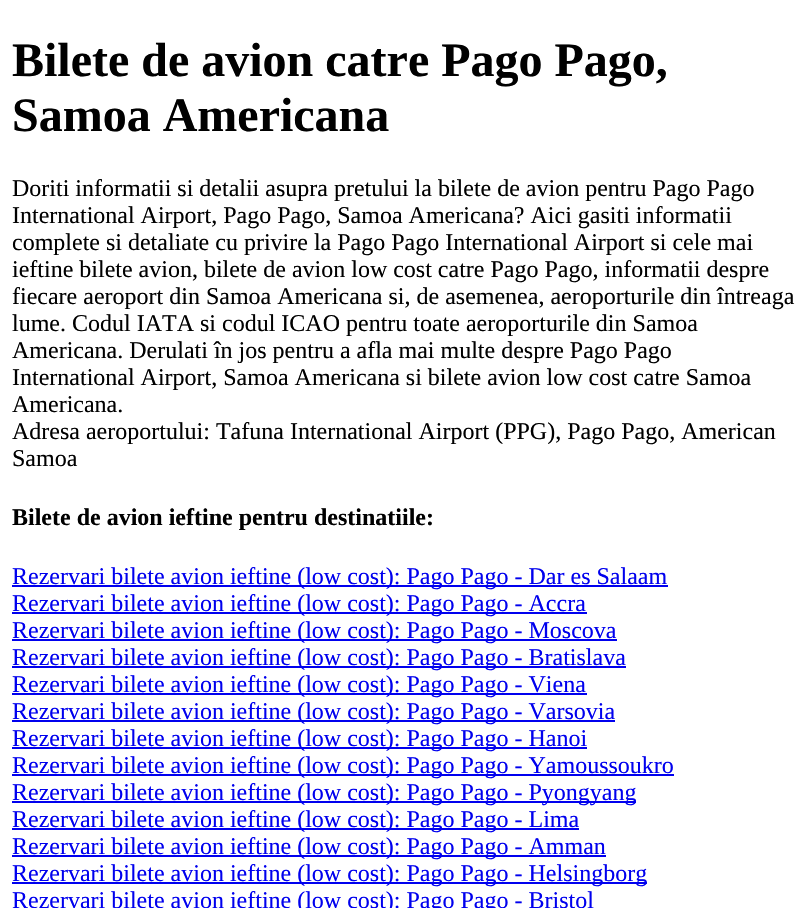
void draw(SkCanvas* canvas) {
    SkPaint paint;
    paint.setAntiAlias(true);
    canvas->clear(0xFFFFFFFF);
    SkFont font1(fontMgr->matchFamilyStyle("Liberation Serif", SkFontStyle::Bold()), 48);
    font1.setSubpixel(true);
    paint.setColor(0xFF000000);
    canvas->drawString("Bilete de avion catre Pago Pago,", 12, 76, font1, paint);
    canvas->drawString("Samoa Americana", 12, 131, font1, paint);
    SkFont font2(fontMgr->matchFamilyStyle("Liberation Serif", SkFontStyle::Normal()), 24);
    font2.setSubpixel(true);
    canvas->drawString("Doriti informatii si detalii asupra pretului la bilete de avion pentru Pago Pago", 12, 196, font2, paint);
    canvas->drawString("International Airport, Pago Pago, Samoa Americana? Aici gasiti informatii", 12, 223, font2, paint);
    canvas->drawString("complete si detaliate cu privire la Pago Pago International Airport si cele mai", 12, 250, font2, paint);
    canvas->drawString("ieftine bilete avion, bilete de avion low cost catre Pago Pago, informatii despre", 12, 277, font2, paint);
    canvas->drawString("fiecare aeroport din Samoa Americana si, de asemenea, aeroporturile din întreaga", 12, 304, font2, paint);
    canvas->drawString("lume. Codul IATA si codul ICAO pentru toate aeroporturile din Samoa", 12, 331, font2, paint);
    canvas->drawString("Americana. Derulati în jos pentru a afla mai multe despre Pago Pago", 12, 358, font2, paint);
    canvas->drawString("International Airport, Samoa Americana si bilete avion low cost catre Samoa", 12, 385, font2, paint);
    canvas->drawString("Americana.", 12, 412, font2, paint);
    canvas->drawString("Adresa aeroportului: Tafuna International Airport (PPG), Pago Pago, American", 12, 439, font2, paint);
    canvas->drawString("Samoa", 12, 466, font2, paint);
    SkFont font3(fontMgr->matchFamilyStyle("Liberation Serif", SkFontStyle::Bold()), 24);
    font3.setSubpixel(true);
    canvas->drawString("Bilete de avion ieftine pentru destinatiile:", 12, 525, font3, paint);
    paint.setColor(0xFF0000EE);
    canvas->drawRect(SkRect::MakeXYWH(12, 585, 656, 2), paint);
    canvas->drawString("Rezervari bilete avion ieftine (low cost): Pago Pago - Dar es Salaam", 12, 584, font2, paint);
    canvas->drawRect(SkRect::MakeXYWH(12, 612, 575, 2), paint);
    canvas->drawString("Rezervari bilete avion ieftine (low cost): Pago Pago - Accra", 12, 611, font2, paint);
    canvas->drawRect(SkRect::MakeXYWH(12, 639, 605, 2), paint);
    canvas->drawString("Rezervari bilete avion ieftine (low cost): Pago Pago - Moscova", 12, 638, font2, paint);
    canvas->drawRect(SkRect::MakeXYWH(12, 666, 614, 2), paint);
    canvas->drawString("Rezervari bilete avion ieftine (low cost): Pago Pago - Bratislava", 12, 665, font2, paint);
    canvas->drawRect(SkRect::MakeXYWH(12, 693, 575, 2), paint);
    canvas->drawString("Rezervari bilete avion ieftine (low cost): Pago Pago - Viena", 12, 692, font2, paint);
    canvas->drawRect(SkRect::MakeXYWH(12, 720, 603, 2), paint);
    canvas->drawString("Rezervari bilete avion ieftine (low cost): Pago Pago - Varsovia", 12, 719, font2, paint);
    canvas->drawRect(SkRect::MakeXYWH(12, 747, 575, 2), paint);
    canvas->drawString("Rezervari bilete avion ieftine (low cost): Pago Pago - Hanoi", 12, 746, font2, paint);
    canvas->drawRect(SkRect::MakeXYWH(12, 774, 662, 2), paint);
    canvas->drawString("Rezervari bilete avion ieftine (low cost): Pago Pago - Yamoussoukro", 12, 773, font2, paint);
    canvas->drawRect(SkRect::MakeXYWH(12, 801, 624, 2), paint);
    canvas->drawString("Rezervari bilete avion ieftine (low cost): Pago Pago - Pyongyang", 12, 800, font2, paint);
    canvas->drawRect(SkRect::MakeXYWH(12, 828, 567, 2), paint);
    canvas->drawString("Rezervari bilete avion ieftine (low cost): Pago Pago - Lima", 12, 827, font2, paint);
    canvas->drawRect(SkRect::MakeXYWH(12, 855, 594, 2), paint);
    canvas->drawString("Rezervari bilete avion ieftine (low cost): Pago Pago - Amman", 12, 854, font2, paint);
    canvas->drawRect(SkRect::MakeXYWH(12, 882, 635, 2), paint);
    canvas->drawString("Rezervari bilete avion ieftine (low cost): Pago Pago - Helsingborg", 12, 881, font2, paint);
    canvas->drawString("Rezervari bilete avion ieftine (low cost): Pago Pago - Bristol", 12, 908, font2, paint);
}
